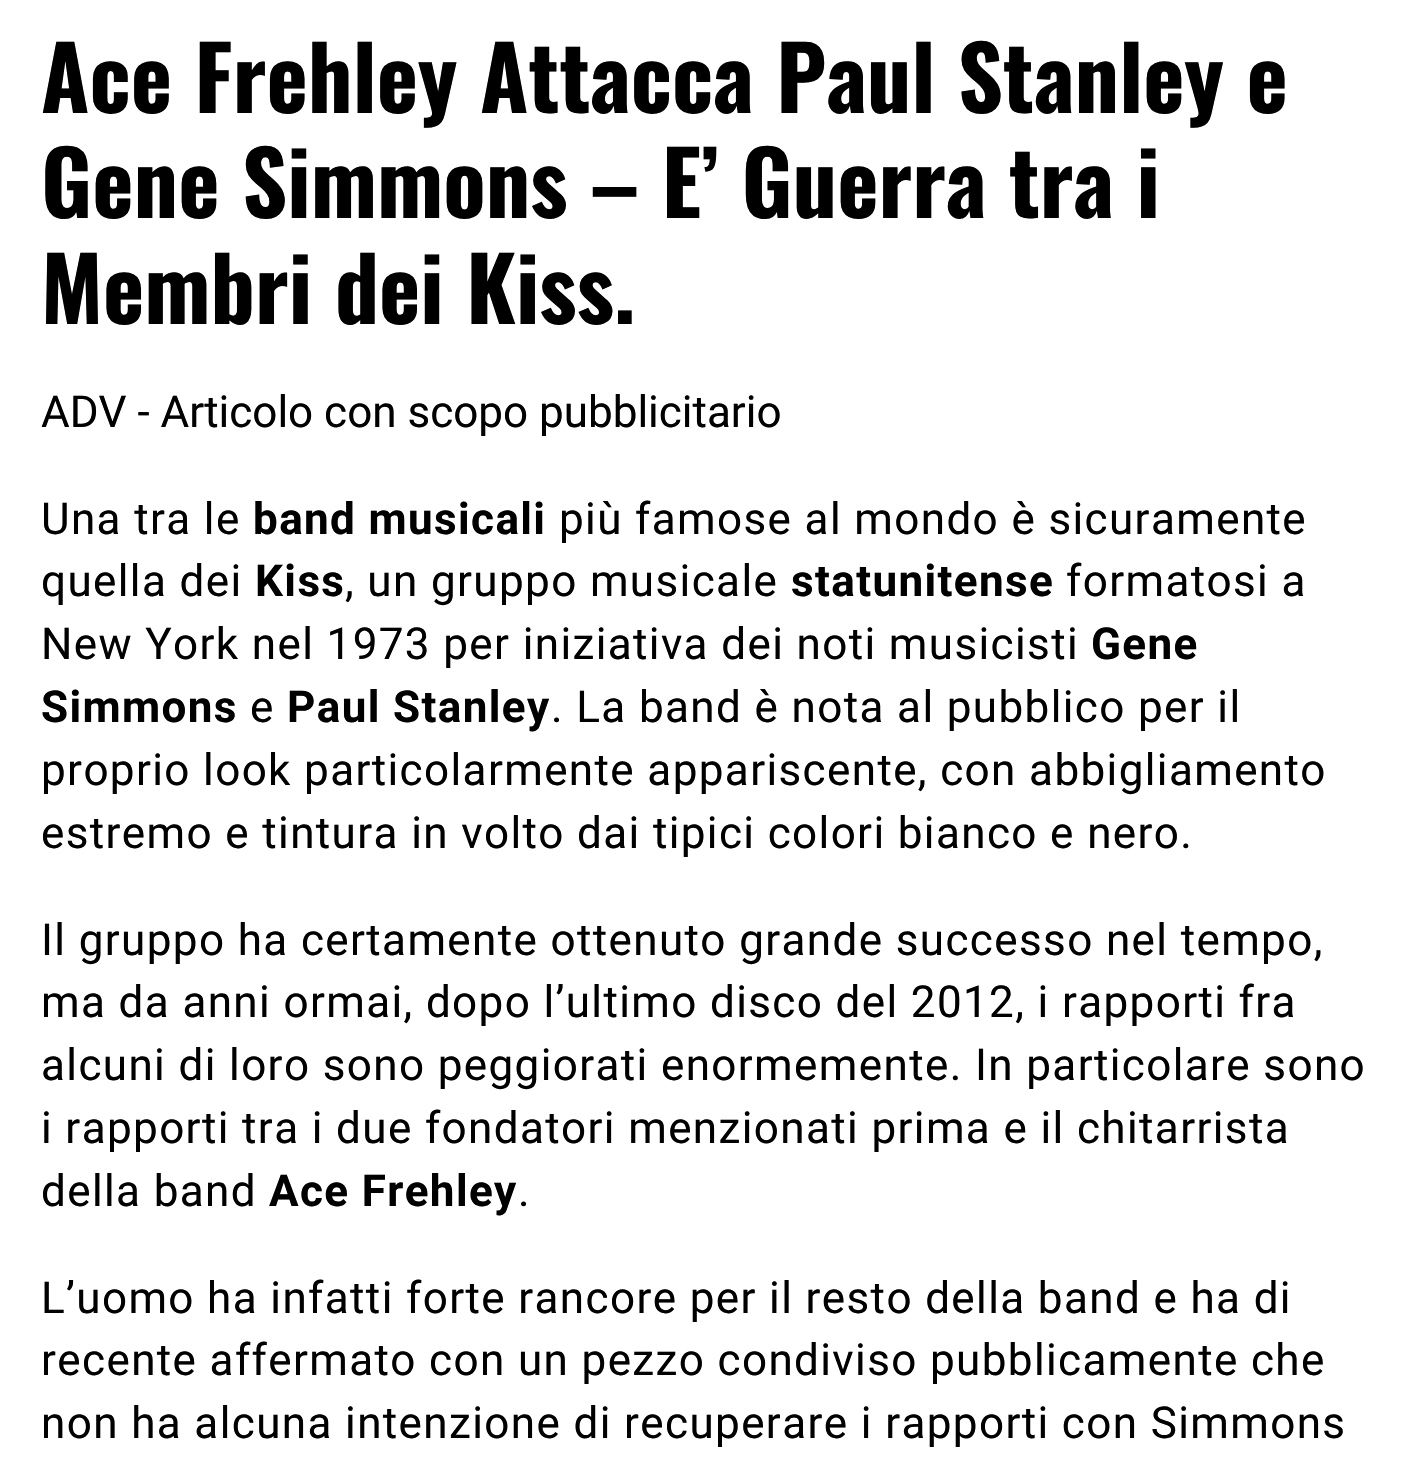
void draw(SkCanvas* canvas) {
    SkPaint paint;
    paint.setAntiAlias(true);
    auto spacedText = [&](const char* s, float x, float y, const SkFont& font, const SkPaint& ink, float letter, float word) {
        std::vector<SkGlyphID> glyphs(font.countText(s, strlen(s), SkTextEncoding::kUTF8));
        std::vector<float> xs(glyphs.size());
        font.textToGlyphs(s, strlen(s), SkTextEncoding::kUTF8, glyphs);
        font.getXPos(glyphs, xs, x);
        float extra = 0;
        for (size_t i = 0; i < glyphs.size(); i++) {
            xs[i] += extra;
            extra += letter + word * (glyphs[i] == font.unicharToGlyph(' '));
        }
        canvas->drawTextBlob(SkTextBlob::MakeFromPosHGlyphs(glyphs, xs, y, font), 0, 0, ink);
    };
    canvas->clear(0xFFFFFFFF);
    SkFont font1(fontMgr->matchFamilyStyle("Oswald", SkFontStyle::Bold()), 88);
    font1.setSubpixel(true);
    paint.setColor(0xFF000000);
    canvas->drawString("Ace Frehley Attacca Paul Stanley e", 41, 113, font1, paint);
    canvas->drawString("Gene Simmons – E’ Guerra tra i", 41, 218, font1, paint);
    canvas->drawString("Membri dei Kiss.", 41, 324, font1, paint);
    SkFont font2(fontMgr->matchFamilyStyle("Roboto", SkFontStyle::Normal()), 44);
    font2.setSubpixel(true);
    canvas->drawString("ADV - Articolo con scopo pubblicitario", 41, 427, font2, paint);
    spacedText("Una tra le", 41, 534, font2, paint, 1.38f, 0);
    SkFont font3(fontMgr->matchFamilyStyle("Roboto", SkFontStyle::Bold()), 44);
    font3.setSubpixel(true);
    spacedText("band musicali", 253, 534, font3, paint, 1.38f, 0);
    spacedText("più famose al mondo è sicuramente", 559, 534, font2, paint, 1.38f, 0);
    spacedText("quella dei", 41, 596, font2, paint, 1.38f, 0);
    spacedText("Kiss", 255, 596, font3, paint, 1.38f, 0);
    spacedText(", un gruppo musicale", 345, 596, font2, paint, 1.38f, 0);
    spacedText("statunitense", 791, 596, font3, paint, 1.38f, 0);
    spacedText("formatosi a", 1066, 596, font2, paint, 1.38f, 0);
    spacedText("New York nel 1973 per iniziativa dei noti musicisti", 41, 659, font2, paint, 1.38f, 0);
    spacedText("Gene", 1091, 659, font3, paint, 1.38f, 0);
    spacedText("Simmons", 41, 722, font3, paint, 1.38f, 0);
    spacedText("e", 250, 722, font2, paint, 1.38f, 0);
    spacedText("Paul Stanley", 287, 722, font3, paint, 1.38f, 0);
    spacedText(". La band è nota al pubblico per il", 551, 722, font2, paint, 1.38f, 0);
    spacedText("proprio look particolarmente appariscente, con abbigliamento", 41, 785, font2, paint, 1.38f, 0);
    spacedText("estremo e tintura in volto dai tipici colori bianco e nero.", 41, 848, font2, paint, 1.38f, 0);
    spacedText("Il gruppo ha certamente ottenuto grande successo nel tempo,", 41, 955, font2, paint, 1.38f, 0);
    spacedText("ma da anni ormai, dopo l’ultimo disco del 2012, i rapporti fra", 41, 1017, font2, paint, 1.38f, 0);
    spacedText("alcuni di loro sono peggiorati enormemente. In particolare sono", 41, 1080, font2, paint, 1.38f, 0);
    spacedText("i rapporti tra i due fondatori menzionati prima e il chitarrista", 41, 1143, font2, paint, 1.38f, 0);
    spacedText("della band", 41, 1206, font2, paint, 1.38f, 0);
    spacedText("Ace Frehley", 269, 1206, font3, paint, 1.38f, 0);
    spacedText(".", 518, 1206, font2, paint, 1.38f, 0);
    spacedText("L’uomo ha infatti forte rancore per il resto della band e ha di", 41, 1313, font2, paint, 1.38f, 0);
    spacedText("recente affermato con un pezzo condiviso pubblicamente che", 41, 1375, font2, paint, 1.38f, 0);
    spacedText("non ha alcuna intenzione di recuperare i rapporti con Simmons", 41, 1438, font2, paint, 1.38f, 0);
}
